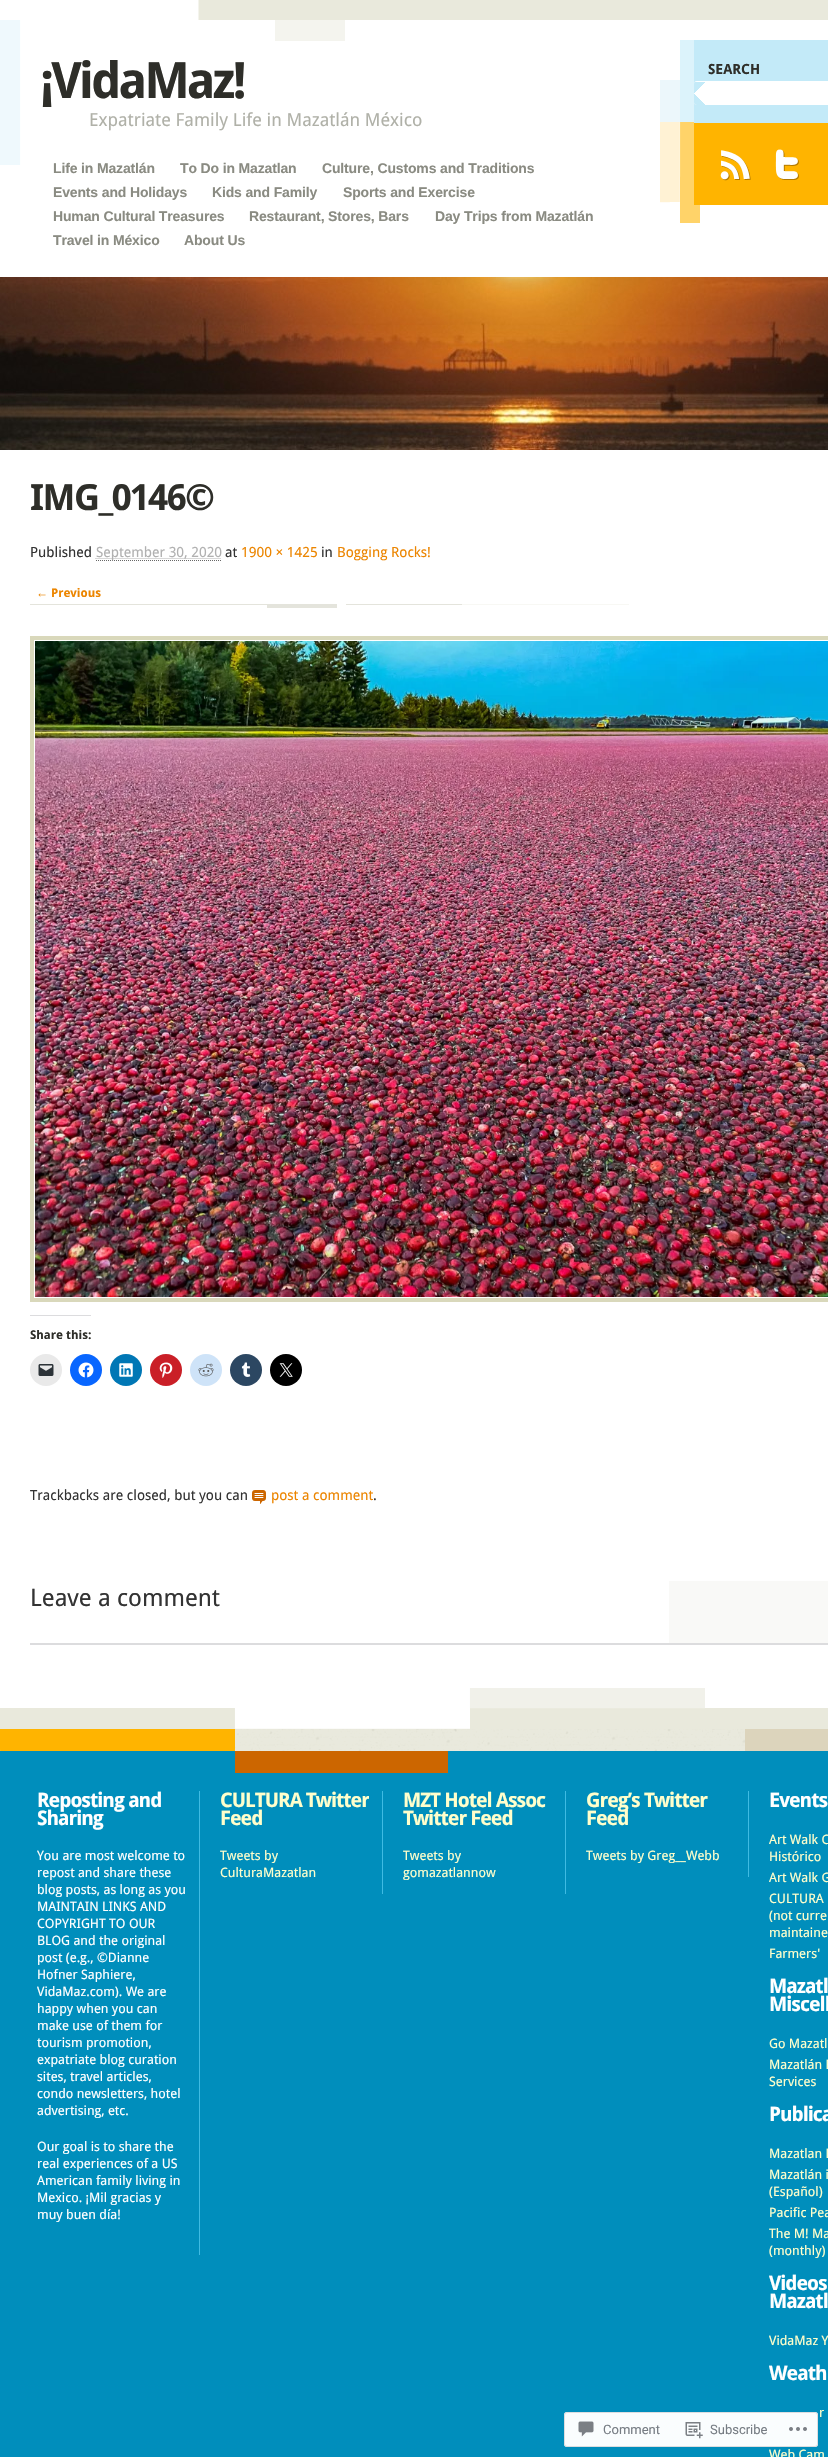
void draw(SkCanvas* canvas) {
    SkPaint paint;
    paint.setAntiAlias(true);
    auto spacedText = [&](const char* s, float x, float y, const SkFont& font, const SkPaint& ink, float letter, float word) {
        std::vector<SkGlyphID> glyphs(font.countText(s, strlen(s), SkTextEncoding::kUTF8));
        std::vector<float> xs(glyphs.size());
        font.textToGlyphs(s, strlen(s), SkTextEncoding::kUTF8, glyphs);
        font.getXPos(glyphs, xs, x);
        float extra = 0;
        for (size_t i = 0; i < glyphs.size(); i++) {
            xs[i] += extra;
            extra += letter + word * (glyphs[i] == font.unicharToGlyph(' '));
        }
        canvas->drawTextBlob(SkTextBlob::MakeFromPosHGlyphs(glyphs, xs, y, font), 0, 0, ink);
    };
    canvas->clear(0xFFE9E9DC);
    canvas->drawImageRect(SkImages::DeferredFromEncodedData(SkData::MakeFromFileName("img1.png")), SkRect::MakeXYWH(0, 0, 269, 20), SkSamplingOptions());
    paint.setColor(0xFFFFFFFF);
    canvas->drawRect(SkRect::MakeXYWH(0, 20, 828, 1668), paint);
    canvas->drawImageRect(SkImages::DeferredFromEncodedData(SkData::MakeFromFileName("img2.png")), SkRect::MakeXYWH(0, 20, 345, 145), SkSamplingOptions());
    SkFont font1(fontMgr->matchFamilyStyle("Droid Sans", SkFontStyle::Bold()), 50);
    font1.setSubpixel(true);
    paint.setColor(0xFF2E2E29);
    spacedText("¡VidaMaz!", 40, 98, font1, paint, -3, 0);
    SkFont font2(fontMgr->matchFamilyStyle("Droid Sans", SkFontStyle::Normal()), 18);
    font2.setSubpixel(true);
    paint.setColor(0xFFB0B1A8);
    canvas->drawString("Expatriate Family Life in Mazatlán México", 89, 126, font2, paint);
    SkFont font3(fontMgr->matchFamilyStyle("Liberation Sans", SkFontStyle::Bold()), 14);
    font3.setSubpixel(true);
    paint.setColor(0xFF8A8B82);
    spacedText("Life in Mazatlán", 53, 173, font3, paint, -0.15f, 0);
    spacedText("To Do in Mazatlan", 180, 173, font3, paint, -0.15f, 0);
    spacedText("Culture, Customs and Traditions", 322, 173, font3, paint, -0.15f, 0);
    spacedText("Events and Holidays", 53, 197, font3, paint, -0.15f, 0);
    spacedText("Kids and Family", 212, 197, font3, paint, -0.15f, 0);
    spacedText("Sports and Exercise", 343, 197, font3, paint, -0.15f, 0);
    spacedText("Human Cultural Treasures", 53, 221, font3, paint, -0.15f, 0);
    spacedText("Restaurant, Stores, Bars", 249, 221, font3, paint, -0.15f, 0);
    spacedText("Day Trips from Mazatlán", 435, 221, font3, paint, -0.15f, 0);
    spacedText("Travel in México", 53, 245, font3, paint, -0.15f, 0);
    spacedText("About Us", 184, 245, font3, paint, -0.15f, 0);
    canvas->drawImageRect(SkImages::DeferredFromEncodedData(SkData::MakeFromFileName("img3.png")), SkRect::MakeXYWH(660, 40, 40, 183), SkSamplingOptions());
    paint.setColor(0xFFC3EAF8);
    canvas->drawRect(SkRect::MakeXYWH(694, 40, 134, 83), paint);
    SkFont font4(fontMgr->matchFamilyStyle("Droid Sans", SkFontStyle::Bold()), 14);
    font4.setSubpixel(true);
    paint.setColor(0xFF2E2E29);
    canvas->drawString("SEARCH", 708, 74, font4, paint);
    paint.setColor(0xFFFFFFFF);
    canvas->drawRoundRect(SkRect::MakeXYWH(694, 81, 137, 24), 3, 3, paint);
    canvas->drawImageRect(SkImages::DeferredFromEncodedData(SkData::MakeFromFileName("img4.png")), SkRect::MakeXYWH(694, 82, 11, 23), SkSamplingOptions());
    paint.setColor(0xFFFFB400);
    canvas->drawRect(SkRect::MakeXYWH(694, 123, 134, 82), paint);
    canvas->drawImageRect(SkImages::DeferredFromEncodedData(SkData::MakeFromFileName("img5.png")), SkRect::MakeXYWH(720, 150, 31, 31), SkSamplingOptions());
    canvas->drawImageRect(SkImages::DeferredFromEncodedData(SkData::MakeFromFileName("img6.png")), SkRect::MakeXYWH(775, 149, 24, 31), SkSamplingOptions());
    canvas->drawImageRect(SkImages::DeferredFromEncodedData(SkData::MakeFromFileName("img7.png")), SkRect::MakeXYWH(0, 277, 828, 173), SkSamplingOptions());
    canvas->drawImageRect(SkImages::DeferredFromEncodedData(SkData::MakeFromFileName("img8.png")), SkRect::MakeXYWH(30, 604, 599, 4), SkSamplingOptions());
    SkFont font5(fontMgr->matchFamilyStyle("Droid Sans", SkFontStyle::Bold()), 36);
    font5.setSubpixel(true);
    paint.setColor(0xFF2E2E29);
    spacedText("IMG_0146©", 30, 510, font5, paint, -1.5f, 0);
    SkFont font6(fontMgr->matchFamilyStyle("Droid Sans", SkFontStyle::Normal()), 14);
    font6.setSubpixel(true);
    paint.setColor(0xFF333333);
    canvas->drawString("Published", 30, 557, font6, paint);
    paint.setStyle(SkPaint::kStroke_Style);
    paint.setStrokeWidth(1);
    paint.setColor(0xFF666666);
    paint.setPathEffect(SkDashPathEffect::Make({{1, 1}}, 0));
    canvas->drawPath(SkPathBuilder().moveTo(96, 560.5f).lineTo(222, 560.5f).detach(), paint);
    paint.setPathEffect(nullptr);
    paint.setColor(0xFFB1B1B1);
    paint.setPathEffect(SkDashPathEffect::Make({{1, 1}}, 0));
    canvas->drawPath(SkPathBuilder().moveTo(95.5f, 558.5f).lineTo(221.5f, 558.5f).detach(), paint);
    paint.setPathEffect(nullptr);
    paint.setStyle(SkPaint::kFill_Style);
    canvas->drawString("September 30, 2020", 96, 557, font6, paint);
    paint.setColor(0xFF333333);
    canvas->drawString("at", 225, 557, font6, paint);
    paint.setColor(0xFFEC8500);
    canvas->drawString("1900 × 1425", 241, 557, font6, paint);
    paint.setColor(0xFF333333);
    canvas->drawString("in", 321, 557, font6, paint);
    paint.setColor(0xFFEC8500);
    canvas->drawString("Bogging Rocks!", 337, 557, font6, paint);
    SkFont font7(fontMgr->matchFamilyStyle("Liberation Sans", SkFontStyle::Bold()), 12);
    font7.setSubpixel(true);
    canvas->drawString("←", 36, 597, font7, paint);
    SkFont font8(fontMgr->matchFamilyStyle("Droid Sans", SkFontStyle::Bold()), 12);
    font8.setSubpixel(true);
    canvas->drawString("Previous", 51, 597, font8, paint);
    paint.setStyle(SkPaint::kStroke_Style);
    paint.setStrokeWidth(4);
    paint.setColor(0xFFD9D8BB);
    canvas->drawRect(SkRect::MakeXYWH(32, 638, 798, 662), paint);
    canvas->drawImageRect(SkImages::DeferredFromEncodedData(SkData::MakeFromFileName("img9.png")), SkRect::MakeXYWH(35, 641, 793, 656), SkSamplingOptions());
    paint.setStyle(SkPaint::kFill_Style);
    paint.setColor(0xFFDCDCDE);
    canvas->drawRect(SkRect::MakeXYWH(30, 1315, 61, 1), paint);
    paint.setColor(0xFF2E2E29);
    canvas->drawString("Share this:", 30, 1339, font8, paint);
    paint.setColor(0xFFE9E9E9);
    canvas->drawCircle(46, 1370, 16, paint);
    canvas->drawImageRect(SkImages::DeferredFromEncodedData(SkData::MakeFromFileName("img10.png")), SkRect::MakeXYWH(38, 1364, 16, 12), SkSamplingOptions());
    paint.setColor(0xFF0866FF);
    canvas->drawCircle(86, 1370, 16, paint);
    canvas->drawImageRect(SkImages::DeferredFromEncodedData(SkData::MakeFromFileName("img11.png")), SkRect::MakeXYWH(78, 1362, 16, 16), SkSamplingOptions());
    paint.setColor(0xFF0077B5);
    canvas->drawCircle(126, 1370, 16, paint);
    canvas->drawImageRect(SkImages::DeferredFromEncodedData(SkData::MakeFromFileName("img12.png")), SkRect::MakeXYWH(119, 1363, 14, 14), SkSamplingOptions());
    paint.setColor(0xFFCA1F27);
    canvas->drawCircle(166, 1370, 16, paint);
    canvas->drawImageRect(SkImages::DeferredFromEncodedData(SkData::MakeFromFileName("img13.png")), SkRect::MakeXYWH(159, 1362, 14, 16), SkSamplingOptions());
    paint.setColor(0xFFCEE3F8);
    canvas->drawCircle(206, 1370, 16, paint);
    canvas->drawImageRect(SkImages::DeferredFromEncodedData(SkData::MakeFromFileName("img14.png")), SkRect::MakeXYWH(198, 1363, 16, 14), SkSamplingOptions());
    paint.setColor(0xFF2C4762);
    canvas->drawCircle(246, 1370, 16, paint);
    canvas->drawImageRect(SkImages::DeferredFromEncodedData(SkData::MakeFromFileName("img15.png")), SkRect::MakeXYWH(241, 1362, 10, 15), SkSamplingOptions());
    paint.setColor(0xFF000000);
    canvas->drawCircle(286, 1370, 16, paint);
    canvas->drawImageRect(SkImages::DeferredFromEncodedData(SkData::MakeFromFileName("img16.png")), SkRect::MakeXYWH(279, 1363, 14, 14), SkSamplingOptions());
    paint.setColor(0xFF333333);
    canvas->drawString("Trackbacks are closed, but you can", 30, 1500, font6, paint);
    canvas->drawImageRect(SkImages::DeferredFromEncodedData(SkData::MakeFromFileName("img17.png")), SkRect::MakeXYWH(252, 1490, 14, 14), SkSamplingOptions());
    paint.setColor(0xFFEC8500);
    canvas->drawString("post a comment", 271, 1500, font6, paint);
    paint.setColor(0xFF333333);
    canvas->drawString(".", 373, 1500, font6, paint);
    paint.setColor(0xFFF9F9F7);
    canvas->drawRect(SkRect::MakeXYWH(669, 1581, 159, 62), paint);
    SkFont font9(fontMgr->matchFamilyStyle("Droid Sans", SkFontStyle::Normal()), 24);
    font9.setSubpixel(true);
    paint.setColor(0xFF333333);
    canvas->drawString("Leave a comment", 30, 1606, font9, paint);
    paint.setColor(0xFFDCDCDE);
    canvas->drawRect(SkRect::MakeXYWH(30, 1643, 798, 2), paint);
    canvas->drawImageRect(SkImages::DeferredFromEncodedData(SkData::MakeFromFileName("img18.png")), SkRect::MakeXYWH(0, 1688, 828, 41), SkSamplingOptions());
    paint.setColor(0xFF008EBC);
    canvas->drawRect(SkRect::MakeXYWH(0, 1773, 828, 684), paint);
    canvas->drawImageRect(SkImages::DeferredFromEncodedData(SkData::MakeFromFileName("img19.png")), SkRect::MakeXYWH(0, 1729, 828, 44), SkSamplingOptions());
    paint.setColor(0xFF3FBBE3);
    canvas->drawRect(SkRect::MakeXYWH(199, 1791, 1, 464), paint);
    SkFont font10(fontMgr->matchFamilyStyle("Droid Sans", SkFontStyle::Bold()), 20);
    font10.setSubpixel(true);
    paint.setColor(0xFFFFFFFF);
    spacedText("Reposting and", 37, 1807, font10, paint, -1, 0);
    spacedText("Sharing", 37, 1825, font10, paint, -1, 0);
    SkFont font11(fontMgr->matchFamilyStyle("Droid Sans", SkFontStyle::Normal()), 13);
    font11.setSubpixel(true);
    canvas->drawString("You are most welcome to", 37, 1860, font11, paint);
    canvas->drawString("repost and share these", 37, 1877, font11, paint);
    canvas->drawString("blog posts, as long as you", 37, 1894, font11, paint);
    canvas->drawString("MAINTAIN LINKS AND", 37, 1911, font11, paint);
    canvas->drawString("COPYRIGHT TO OUR", 37, 1928, font11, paint);
    canvas->drawString("BLOG and the original", 37, 1945, font11, paint);
    canvas->drawString("post (e.g., ©Dianne", 37, 1962, font11, paint);
    canvas->drawString("Hofner Saphiere,", 37, 1979, font11, paint);
    canvas->drawString("VidaMaz.com). We are", 37, 1996, font11, paint);
    canvas->drawString("happy when you can", 37, 2013, font11, paint);
    canvas->drawString("make use of them for", 37, 2030, font11, paint);
    canvas->drawString("tourism promotion,", 37, 2047, font11, paint);
    canvas->drawString("expatriate blog curation", 37, 2064, font11, paint);
    canvas->drawString("sites, travel articles,", 37, 2081, font11, paint);
    canvas->drawString("condo newsletters, hotel", 37, 2098, font11, paint);
    canvas->drawString("advertising, etc.", 37, 2115, font11, paint);
    canvas->drawString("Our goal is to share the", 37, 2151, font11, paint);
    canvas->drawString("real experiences of a US", 37, 2168, font11, paint);
    canvas->drawString("American family living in", 37, 2185, font11, paint);
    canvas->drawString("Mexico. ¡Mil gracias y", 37, 2202, font11, paint);
    canvas->drawString("muy buen día!", 37, 2219, font11, paint);
    paint.setColor(0xFF3FBBE3);
    canvas->drawRect(SkRect::MakeXYWH(382, 1791, 1, 103), paint);
    canvas->save();
    canvas->clipRect(SkRect::MakeXYWH(220, 1791, 149, 90));
    paint.setColor(0xFFFFFFCC);
    spacedText("CULTURA Twitter", 220, 1807, font10, paint, -1, 0);
    canvas->restore();
    spacedText("Feed", 220, 1825, font10, paint, -1, 0);
    canvas->drawString("Tweets by", 220, 1860, font11, paint);
    canvas->drawString("CulturaMazatlan", 220, 1877, font11, paint);
    paint.setColor(0xFF3FBBE3);
    canvas->drawRect(SkRect::MakeXYWH(565, 1791, 1, 103), paint);
    paint.setColor(0xFFFFFFCC);
    spacedText("MZT Hotel Assoc", 403, 1807, font10, paint, -1, 0);
    spacedText("Twitter Feed", 403, 1825, font10, paint, -1, 0);
    canvas->drawString("Tweets by", 403, 1860, font11, paint);
    canvas->drawString("gomazatlannow", 403, 1877, font11, paint);
    paint.setColor(0xFF3FBBE3);
    canvas->drawRect(SkRect::MakeXYWH(748, 1791, 1, 86), paint);
    paint.setColor(0xFFFFFFCC);
    spacedText("Greg’s Twitter", 586, 1807, font10, paint, -1, 0);
    spacedText("Feed", 586, 1825, font10, paint, -1, 0);
    canvas->drawString("Tweets by Greg__Webb", 586, 1860, font11, paint);
    paint.setColor(0xFFFFFFFF);
    spacedText("Events", 769, 1807, font10, paint, -1, 0);
    paint.setColor(0xFFFFFFCC);
    canvas->drawString("Art Walk C", 769, 1844, font11, paint);
    canvas->drawString("Histórico", 769, 1861, font11, paint);
    canvas->drawString("Art Walk G", 769, 1882, font11, paint);
    canvas->drawString("CULTURA", 769, 1903, font11, paint);
    canvas->drawString("(not curre", 769, 1920, font11, paint);
    canvas->drawString("maintaine", 769, 1937, font11, paint);
    canvas->drawString("Farmers'", 769, 1958, font11, paint);
    paint.setColor(0xFFFFFFFF);
    spacedText("Mazatl", 769, 1993, font10, paint, -1, 0);
    spacedText("Miscell", 769, 2011, font10, paint, -1, 0);
    paint.setColor(0xFFFFFFCC);
    canvas->drawString("Go Mazatl", 769, 2048, font11, paint);
    canvas->drawString("Mazatlán E", 769, 2069, font11, paint);
    canvas->drawString("Services", 769, 2086, font11, paint);
    paint.setColor(0xFFFFFFFF);
    spacedText("Publica", 769, 2121, font10, paint, -1, 0);
    paint.setColor(0xFFFFFFCC);
    canvas->drawString("Mazatlan L", 769, 2158, font11, paint);
    canvas->drawString("Mazatlán i", 769, 2179, font11, paint);
    canvas->drawString("(Español)", 769, 2196, font11, paint);
    canvas->drawString("Pacific Pea", 769, 2217, font11, paint);
    canvas->drawString("The M! Ma", 769, 2238, font11, paint);
    canvas->drawString("(monthly)", 769, 2255, font11, paint);
    paint.setColor(0xFFFFFFFF);
    spacedText("Videos", 769, 2290, font10, paint, -1, 0);
    spacedText("Mazatl", 769, 2308, font10, paint, -1, 0);
    paint.setColor(0xFFFFFFCC);
    canvas->drawString("VidaMaz Y", 769, 2345, font11, paint);
    paint.setColor(0xFFFFFFFF);
    spacedText("Weath", 769, 2380, font10, paint, -1, 0);
    paint.setColor(0xFFFFFFCC);
    canvas->drawString("r", 819, 2417, font11, paint);
    canvas->drawString("Web Cam", 769, 2459, font11, paint);
    paint.setColor(0xFAFFFFFF);
    canvas->drawRoundRect(SkRect::MakeXYWH(564, 2412, 254, 35), 3, 3, paint);
    paint.setStyle(SkPaint::kStroke_Style);
    paint.setStrokeWidth(1);
    paint.setColor(0xFADCDCDE);
    canvas->drawRoundRect(SkRect::MakeXYWH(564.5f, 2412.5f, 253, 34), 2.5f, 2.5f, paint);
    canvas->drawImageRect(SkImages::DeferredFromEncodedData(SkData::MakeFromFileName("img20.png")), SkRect::MakeXYWH(578, 2421, 16, 16), SkSamplingOptions());
    SkFont font12(fontMgr->matchFamilyStyle("Roboto", SkFontStyle::Normal()), 13);
    font12.setSubpixel(true);
    paint.setStyle(SkPaint::kFill_Style);
    paint.setColor(0xFF767C83);
    canvas->drawString("Comment", 603, 2434, font12, paint);
    canvas->drawImageRect(SkImages::DeferredFromEncodedData(SkData::MakeFromFileName("img21.png")), SkRect::MakeXYWH(685, 2422, 18, 17), SkSamplingOptions());
    canvas->drawString("Subscribe", 710, 2434, font12, paint);
    canvas->drawImageRect(SkImages::DeferredFromEncodedData(SkData::MakeFromFileName("img22.png")), SkRect::MakeXYWH(789, 2427, 18, 4), SkSamplingOptions());
}
